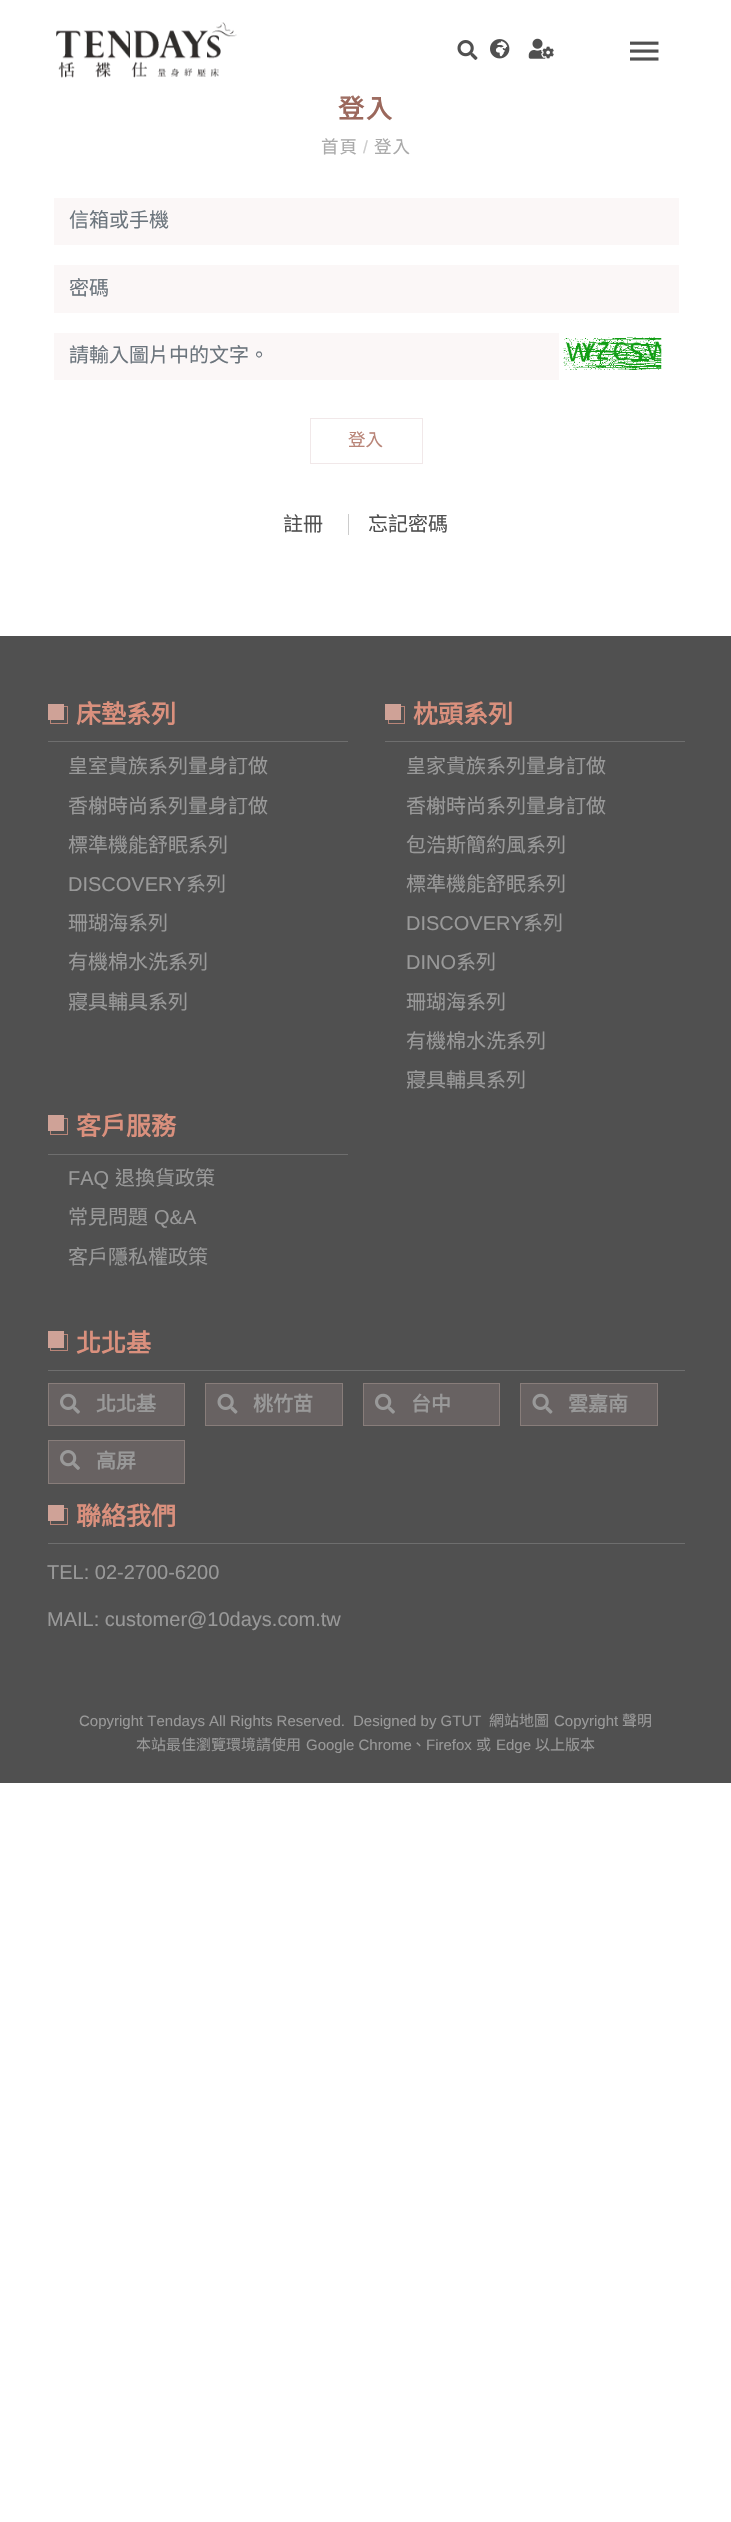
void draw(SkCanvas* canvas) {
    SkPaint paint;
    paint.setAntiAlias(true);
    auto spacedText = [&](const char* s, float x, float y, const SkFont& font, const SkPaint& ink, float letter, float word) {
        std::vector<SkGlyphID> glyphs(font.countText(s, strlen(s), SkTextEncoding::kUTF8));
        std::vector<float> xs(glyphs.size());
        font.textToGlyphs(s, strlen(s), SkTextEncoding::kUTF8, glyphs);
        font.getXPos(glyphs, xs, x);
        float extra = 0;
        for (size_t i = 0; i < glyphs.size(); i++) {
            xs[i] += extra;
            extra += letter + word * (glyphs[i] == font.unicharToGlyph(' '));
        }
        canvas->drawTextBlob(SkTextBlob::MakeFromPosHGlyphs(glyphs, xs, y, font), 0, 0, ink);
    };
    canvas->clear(0xFFFFFFFF);
    SkFont font1(fontMgr->matchFamilyStyle("Noto Sans CJK TC", SkFontStyle::Bold()), 26);
    font1.setSubpixel(true);
    paint.setColor(0xFF9B685C);
    spacedText("登入", 338, 118, font1, paint, 2, 0);
    {
        const SkColor colors[] = {0xFFFFFFFF, 0xB3FFFFFF, 0x00FFFFFF};
        const float stops[] = {0, 0.6f, 1};
        const SkPoint ends[] = {{366, 0}, {366, 100}};
        paint.setShader(SkGradientShader::MakeLinear(ends, colors, stops, 3, SkTileMode::kClamp));
        paint.setAlpha(255);
    }
    canvas->drawRect(SkRect::MakeXYWH(340, 96, 40, 3), paint);
    canvas->drawImageRect(SkImages::DeferredFromEncodedData(SkData::MakeFromFileName("img1.png")), SkRect::MakeXYWH(56, 22, 181, 56), SkSamplingOptions());
    canvas->drawImageRect(SkImages::DeferredFromEncodedData(SkData::MakeFromFileName("img2.png")), SkRect::MakeXYWH(457, 40, 21, 20), SkSamplingOptions());
    canvas->drawImageRect(SkImages::DeferredFromEncodedData(SkData::MakeFromFileName("img3.png")), SkRect::MakeXYWH(490, 39, 20, 20), SkSamplingOptions());
    canvas->drawImageRect(SkImages::DeferredFromEncodedData(SkData::MakeFromFileName("img4.png")), SkRect::MakeXYWH(528, 38, 26, 21), SkSamplingOptions());
    canvas->drawImageRect(SkImages::DeferredFromEncodedData(SkData::MakeFromFileName("img5.png")), SkRect::MakeXYWH(630, 41, 29, 20), SkSamplingOptions());
    SkFont font2(fontMgr->matchFamilyStyle("Noto Sans CJK TC", SkFontStyle::Normal()), 17.5f);
    font2.setSubpixel(true);
    paint.setShader(nullptr);
    paint.setColor(0xFFAAAAAA);
    spacedText("首頁", 321, 153, font2, paint, 1, 0);
    SkFont font3(fontMgr->matchFamilyStyle("Liberation Sans", SkFontStyle::Normal()), 17.5f);
    font3.setSubpixel(true);
    paint.setColor(0xFFCCCCCC);
    spacedText("/", 363, 153, font3, paint, 1, 0);
    paint.setColor(0xFFAAAAAA);
    spacedText("登入", 374, 153, font2, paint, 1, 0);
    paint.setColor(0xFFFBF7F7);
    canvas->drawRect(SkRect::MakeXYWH(54, 198, 625, 47), paint);
    SkFont font4(fontMgr->matchFamilyStyle("Noto Sans CJK TC", SkFontStyle::Normal()), 20);
    font4.setSubpixel(true);
    paint.setColor(0xFF6C757D);
    canvas->drawString("信箱或手機", 69, 227, font4, paint);
    paint.setColor(0xFFFBF7F7);
    canvas->drawRect(SkRect::MakeXYWH(54, 265, 625, 48), paint);
    paint.setColor(0xFF6C757D);
    canvas->drawString("密碼", 69, 295, font4, paint);
    paint.setColor(0xFFFBF7F7);
    canvas->drawRect(SkRect::MakeXYWH(54, 333, 505, 47), paint);
    paint.setColor(0xFF6C757D);
    canvas->drawString("請輸入圖片中的文字。", 69, 362, font4, paint);
    canvas->drawImageRect(SkImages::DeferredFromEncodedData(SkData::MakeFromFileName("img6.png")), SkRect::MakeXYWH(563, 337, 99, 33), SkSamplingOptions());
    paint.setStyle(SkPaint::kStroke_Style);
    paint.setStrokeWidth(1);
    paint.setColor(0xFFF1E8E9);
    canvas->drawRect(SkRect::MakeXYWH(310.5f, 418.5f, 112, 45), paint);
    paint.setStyle(SkPaint::kFill_Style);
    paint.setColor(0xFFB98578);
    canvas->drawString("登入", 348, 446, font2, paint);
    paint.setColor(0xFF505050);
    canvas->drawString("註冊", 283, 531, font4, paint);
    canvas->drawString("忘記密碼", 368, 531, font4, paint);
    paint.setColor(0xFFCCCCCC);
    canvas->drawRect(SkRect::MakeXYWH(348, 514, 1, 21), paint);
    paint.setColor(0xFF505050);
    canvas->drawRect(SkRect::MakeXYWH(0, 636, 731, 1147), paint);
    paint.setColor(0xFF6E6E6E);
    canvas->drawRect(SkRect::MakeXYWH(48, 741, 300, 1), paint);
    paint.setStyle(SkPaint::kStroke_Style);
    paint.setColor(0xFFB98578);
    canvas->drawRect(SkRect::MakeXYWH(50.5f, 706.5f, 17, 17), paint);
    paint.setStyle(SkPaint::kFill_Style);
    paint.setColor(0xFFCFA297);
    canvas->drawRect(SkRect::MakeXYWH(48, 704, 16, 16), paint);
    SkFont font5(fontMgr->matchFamilyStyle("Noto Sans CJK TC", SkFontStyle::Bold()), 25);
    font5.setSubpixel(true);
    paint.setColor(0xFFDA907D);
    canvas->drawString("床墊系列", 76, 723, font5, paint);
    paint.setColor(0xFF999999);
    canvas->drawString("皇室貴族系列量身訂做", 68, 773, font4, paint);
    canvas->drawString("香榭時尚系列量身訂做", 68, 813, font4, paint);
    canvas->drawString("標準機能舒眠系列", 68, 852, font4, paint);
    SkFont font6(fontMgr->matchFamilyStyle("Liberation Sans", SkFontStyle::Normal()), 20);
    font6.setSubpixel(true);
    canvas->drawString("DISCOVERY", 68, 891, font6, paint);
    canvas->drawString("系列", 186, 891, font4, paint);
    canvas->drawString("珊瑚海系列", 68, 930, font4, paint);
    canvas->drawString("有機棉水洗系列", 68, 969, font4, paint);
    canvas->drawString("寢具輔具系列", 68, 1009, font4, paint);
    paint.setColor(0xFF6E6E6E);
    canvas->drawRect(SkRect::MakeXYWH(385, 741, 300, 1), paint);
    paint.setStyle(SkPaint::kStroke_Style);
    paint.setColor(0xFFB98578);
    canvas->drawRect(SkRect::MakeXYWH(388.5f, 706.5f, 16, 17), paint);
    paint.setStyle(SkPaint::kFill_Style);
    paint.setColor(0xFFCFA297);
    canvas->drawRect(SkRect::MakeXYWH(385, 704, 16, 16), paint);
    paint.setColor(0xFFDA907D);
    canvas->drawString("枕頭系列", 413, 723, font5, paint);
    paint.setColor(0xFF999999);
    canvas->drawString("皇家貴族系列量身訂做", 406, 773, font4, paint);
    canvas->drawString("香榭時尚系列量身訂做", 406, 813, font4, paint);
    canvas->drawString("包浩斯簡約風系列", 406, 852, font4, paint);
    canvas->drawString("標準機能舒眠系列", 406, 891, font4, paint);
    canvas->drawString("DISCOVERY", 406, 930, font6, paint);
    canvas->drawString("系列", 523, 930, font4, paint);
    canvas->drawString("DINO", 406, 969, font6, paint);
    canvas->drawString("系列", 456, 969, font4, paint);
    canvas->drawString("珊瑚海系列", 406, 1009, font4, paint);
    canvas->drawString("有機棉水洗系列", 406, 1048, font4, paint);
    canvas->drawString("寢具輔具系列", 406, 1087, font4, paint);
    paint.setColor(0xFF6E6E6E);
    canvas->drawRect(SkRect::MakeXYWH(48, 1154, 300, 1), paint);
    paint.setStyle(SkPaint::kStroke_Style);
    paint.setColor(0xFFB98578);
    canvas->drawRect(SkRect::MakeXYWH(50.5f, 1118.5f, 17, 16), paint);
    paint.setStyle(SkPaint::kFill_Style);
    paint.setColor(0xFFCFA297);
    canvas->drawRect(SkRect::MakeXYWH(48, 1115, 16, 16), paint);
    paint.setColor(0xFFDA907D);
    canvas->drawString("客戶服務", 76, 1135, font5, paint);
    paint.setColor(0xFF999999);
    canvas->drawString("FAQ", 68, 1185, font6, paint);
    canvas->drawString("退換貨政策", 115, 1185, font4, paint);
    canvas->drawString("常見問題", 68, 1224, font4, paint);
    canvas->drawString("Q&A", 154, 1224, font6, paint);
    canvas->drawString("客戶隱私權政策", 68, 1264, font4, paint);
    paint.setColor(0xFF6E6E6E);
    canvas->drawRect(SkRect::MakeXYWH(48, 1370, 637, 1), paint);
    paint.setStyle(SkPaint::kStroke_Style);
    paint.setColor(0xFFB98578);
    canvas->drawRect(SkRect::MakeXYWH(50.5f, 1334.5f, 17, 16), paint);
    paint.setStyle(SkPaint::kFill_Style);
    paint.setColor(0xFFCFA297);
    canvas->drawRect(SkRect::MakeXYWH(48, 1331, 16, 17), paint);
    paint.setColor(0xFFDA907D);
    canvas->drawString("北北基", 76, 1352, font5, paint);
    paint.setColor(0xFF686262);
    canvas->drawRect(SkRect::MakeXYWH(48.5f, 1383.5f, 136, 42), paint);
    paint.setStyle(SkPaint::kStroke_Style);
    paint.setColor(0xFF887D7A);
    canvas->drawRect(SkRect::MakeXYWH(48.5f, 1383.5f, 136, 42), paint);
    canvas->drawImageRect(SkImages::DeferredFromEncodedData(SkData::MakeFromFileName("img7.png")), SkRect::MakeXYWH(60, 1393, 20, 21), SkSamplingOptions());
    SkFont font7(fontMgr->matchFamilyStyle("Noto Sans CJK TC", SkFontStyle::Bold()), 20);
    font7.setSubpixel(true);
    paint.setStyle(SkPaint::kFill_Style);
    paint.setColor(0xFF999999);
    canvas->drawString("北北基", 96, 1411, font7, paint);
    paint.setColor(0xFF686262);
    canvas->drawRect(SkRect::MakeXYWH(205.5f, 1383.5f, 137, 42), paint);
    paint.setStyle(SkPaint::kStroke_Style);
    paint.setColor(0xFF887D7A);
    canvas->drawRect(SkRect::MakeXYWH(205.5f, 1383.5f, 137, 42), paint);
    canvas->drawImageRect(SkImages::DeferredFromEncodedData(SkData::MakeFromFileName("img8.png")), SkRect::MakeXYWH(217, 1393, 21, 21), SkSamplingOptions());
    paint.setStyle(SkPaint::kFill_Style);
    paint.setColor(0xFF999999);
    canvas->drawString("桃竹苗", 253, 1411, font7, paint);
    paint.setColor(0xFF686262);
    canvas->drawRect(SkRect::MakeXYWH(363.5f, 1383.5f, 136, 42), paint);
    paint.setStyle(SkPaint::kStroke_Style);
    paint.setColor(0xFF887D7A);
    canvas->drawRect(SkRect::MakeXYWH(363.5f, 1383.5f, 136, 42), paint);
    canvas->drawImageRect(SkImages::DeferredFromEncodedData(SkData::MakeFromFileName("img7.png")), SkRect::MakeXYWH(375, 1393, 20, 21), SkSamplingOptions());
    paint.setStyle(SkPaint::kFill_Style);
    paint.setColor(0xFF999999);
    canvas->drawString("台中", 411, 1411, font7, paint);
    paint.setColor(0xFF686262);
    canvas->drawRect(SkRect::MakeXYWH(520.5f, 1383.5f, 137, 42), paint);
    paint.setStyle(SkPaint::kStroke_Style);
    paint.setColor(0xFF887D7A);
    canvas->drawRect(SkRect::MakeXYWH(520.5f, 1383.5f, 137, 42), paint);
    canvas->drawImageRect(SkImages::DeferredFromEncodedData(SkData::MakeFromFileName("img8.png")), SkRect::MakeXYWH(532, 1393, 21, 21), SkSamplingOptions());
    paint.setStyle(SkPaint::kFill_Style);
    paint.setColor(0xFF999999);
    canvas->drawString("雲嘉南", 568, 1411, font7, paint);
    paint.setColor(0xFF686262);
    canvas->drawRect(SkRect::MakeXYWH(48.5f, 1440.5f, 136, 43), paint);
    paint.setStyle(SkPaint::kStroke_Style);
    paint.setColor(0xFF887D7A);
    canvas->drawRect(SkRect::MakeXYWH(48.5f, 1440.5f, 136, 43), paint);
    canvas->drawImageRect(SkImages::DeferredFromEncodedData(SkData::MakeFromFileName("img9.png")), SkRect::MakeXYWH(60, 1450, 20, 20), SkSamplingOptions());
    paint.setStyle(SkPaint::kFill_Style);
    paint.setColor(0xFF999999);
    canvas->drawString("高屏", 96, 1468, font7, paint);
    paint.setColor(0xFF6E6E6E);
    canvas->drawRect(SkRect::MakeXYWH(48, 1543, 637, 1), paint);
    paint.setStyle(SkPaint::kStroke_Style);
    paint.setColor(0xFFB98578);
    canvas->drawRect(SkRect::MakeXYWH(50.5f, 1508.5f, 17, 16), paint);
    paint.setStyle(SkPaint::kFill_Style);
    paint.setColor(0xFFCFA297);
    canvas->drawRect(SkRect::MakeXYWH(48, 1505, 16, 16), paint);
    paint.setColor(0xFFDA907D);
    canvas->drawString("聯絡我們", 76, 1525, font5, paint);
    paint.setColor(0xFF999999);
    canvas->drawString("TEL: 02-2700-6200", 47, 1579, font6, paint);
    canvas->drawString("MAIL: customer@10days.com.tw", 47, 1626, font6, paint);
    SkFont font8(fontMgr->matchFamilyStyle("Liberation Sans", SkFontStyle::Normal()), 15);
    font8.setSubpixel(true);
    canvas->drawString("Copyright Tendays All Rights Reserved.", 79, 1726, font8, paint);
    canvas->drawString("Designed by GTUT", 353, 1726, font8, paint);
    SkFont font9(fontMgr->matchFamilyStyle("Noto Sans CJK TC", SkFontStyle::Normal()), 15);
    font9.setSubpixel(true);
    canvas->drawString("網站地圖", 489, 1726, font9, paint);
    canvas->drawString("Copyright", 554, 1726, font8, paint);
    canvas->drawString("聲明", 622, 1726, font9, paint);
    canvas->drawString("本站最佳瀏覽環境請使用", 136, 1750, font9, paint);
    canvas->drawString("Google Chrome", 306, 1750, font8, paint);
    canvas->drawString("、", 411, 1750, font9, paint);
    canvas->drawString("Firefox", 426, 1750, font8, paint);
    canvas->drawString("或", 476, 1750, font9, paint);
    canvas->drawString("Edge", 496, 1750, font8, paint);
    canvas->drawString("以上版本", 535, 1750, font9, paint);
}
